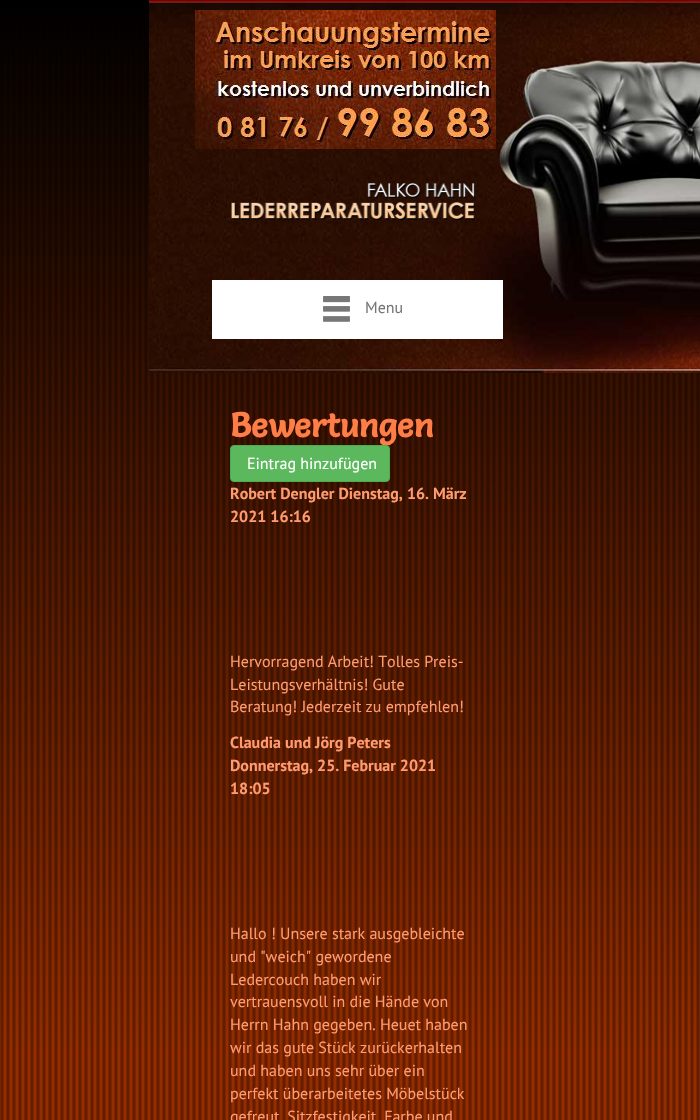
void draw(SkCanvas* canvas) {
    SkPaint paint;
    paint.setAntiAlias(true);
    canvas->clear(0xFFFFFFFF);
    canvas->drawImageRect(SkImages::DeferredFromEncodedData(SkData::MakeFromFileName("img1.png")), SkRect::MakeXYWH(0, 0, 700, 1120), SkSamplingOptions());
    canvas->drawImageRect(SkImages::DeferredFromEncodedData(SkData::MakeFromFileName("img2.png")), SkRect::MakeXYWH(149, 0, 551, 373), SkSamplingOptions());
    canvas->drawImageRect(SkImages::DeferredFromEncodedData(SkData::MakeFromFileName("img3.png")), SkRect::MakeXYWH(195, 10, 301, 139), SkSamplingOptions());
    canvas->drawImageRect(SkImages::DeferredFromEncodedData(SkData::MakeFromFileName("img4.png")), SkRect::MakeXYWH(231, 183, 244, 37), SkSamplingOptions());
    paint.setColor(0xFFFFFFFF);
    canvas->drawRect(SkRect::MakeXYWH(212, 280, 291, 59), paint);
    canvas->drawImageRect(SkImages::DeferredFromEncodedData(SkData::MakeFromFileName("img5.png")), SkRect::MakeXYWH(323, 296, 27, 26), SkSamplingOptions());
    SkFont font1(fontMgr->matchFamilyStyle("PT Sans", SkFontStyle::Normal()), 16);
    font1.setSubpixel(true);
    paint.setColor(0xFF777777);
    canvas->drawString("Menu", 365, 313, font1, paint);
    SkFont font2(fontMgr->matchFamilyStyle("Salsa", SkFontStyle::Bold()), 34);
    font2.setSubpixel(true);
    paint.setColor(0xFFFF7E47);
    canvas->drawString("Bewertungen", 230, 437, font2, paint);
    paint.setColor(0xFF5CB85C);
    canvas->drawRoundRect(SkRect::MakeXYWH(230.5f, 445.5f, 159, 36), 3.5f, 3.5f, paint);
    paint.setStyle(SkPaint::kStroke_Style);
    paint.setStrokeWidth(1);
    paint.setColor(0xFF4CAE4C);
    canvas->drawRoundRect(SkRect::MakeXYWH(230.5f, 445.5f, 159, 36), 3.5f, 3.5f, paint);
    paint.setStyle(SkPaint::kFill_Style);
    paint.setColor(0xFFFFFFFF);
    canvas->drawString("Eintrag hinzufügen", 247, 469, font1, paint);
    SkFont font3(fontMgr->matchFamilyStyle("PT Sans", SkFontStyle::Bold()), 16);
    font3.setSubpixel(true);
    paint.setColor(0xFFFF9B70);
    canvas->drawString("Robert Dengler Dienstag, 16. März", 230, 499, font3, paint);
    canvas->drawString("2021 16:16", 230, 522, font3, paint);
    canvas->drawString("Hervorragend Arbeit! Tolles Preis-", 230, 667, font1, paint);
    canvas->drawString("Leistungsverhältnis! Gute", 230, 690, font1, paint);
    canvas->drawString("Beratung! Jederzeit zu empfehlen!", 230, 712, font1, paint);
    canvas->drawString("Claudia und Jörg Peters", 230, 748, font3, paint);
    canvas->drawString("Donnerstag, 25. Februar 2021", 230, 771, font3, paint);
    canvas->drawString("18:05", 230, 794, font3, paint);
    canvas->drawString("Hallo ! Unsere stark ausgebleichte", 230, 939, font1, paint);
    canvas->drawString("und \"weich\" gewordene", 230, 962, font1, paint);
    canvas->drawString("Ledercouch haben wir", 230, 985, font1, paint);
    canvas->drawString("vertrauensvoll in die Hände von", 230, 1007, font1, paint);
    canvas->drawString("Herrn Hahn gegeben. Heuet haben", 230, 1030, font1, paint);
    canvas->drawString("wir das gute Stück zurückerhalten", 230, 1053, font1, paint);
    canvas->drawString("und haben uns sehr über ein", 230, 1076, font1, paint);
    canvas->drawString("perfekt überarbeitetes Möbelstück", 230, 1099, font1, paint);
    canvas->drawString("gefreut. Sitzfestigkeit, Farbe und", 230, 1122, font1, paint);
}
